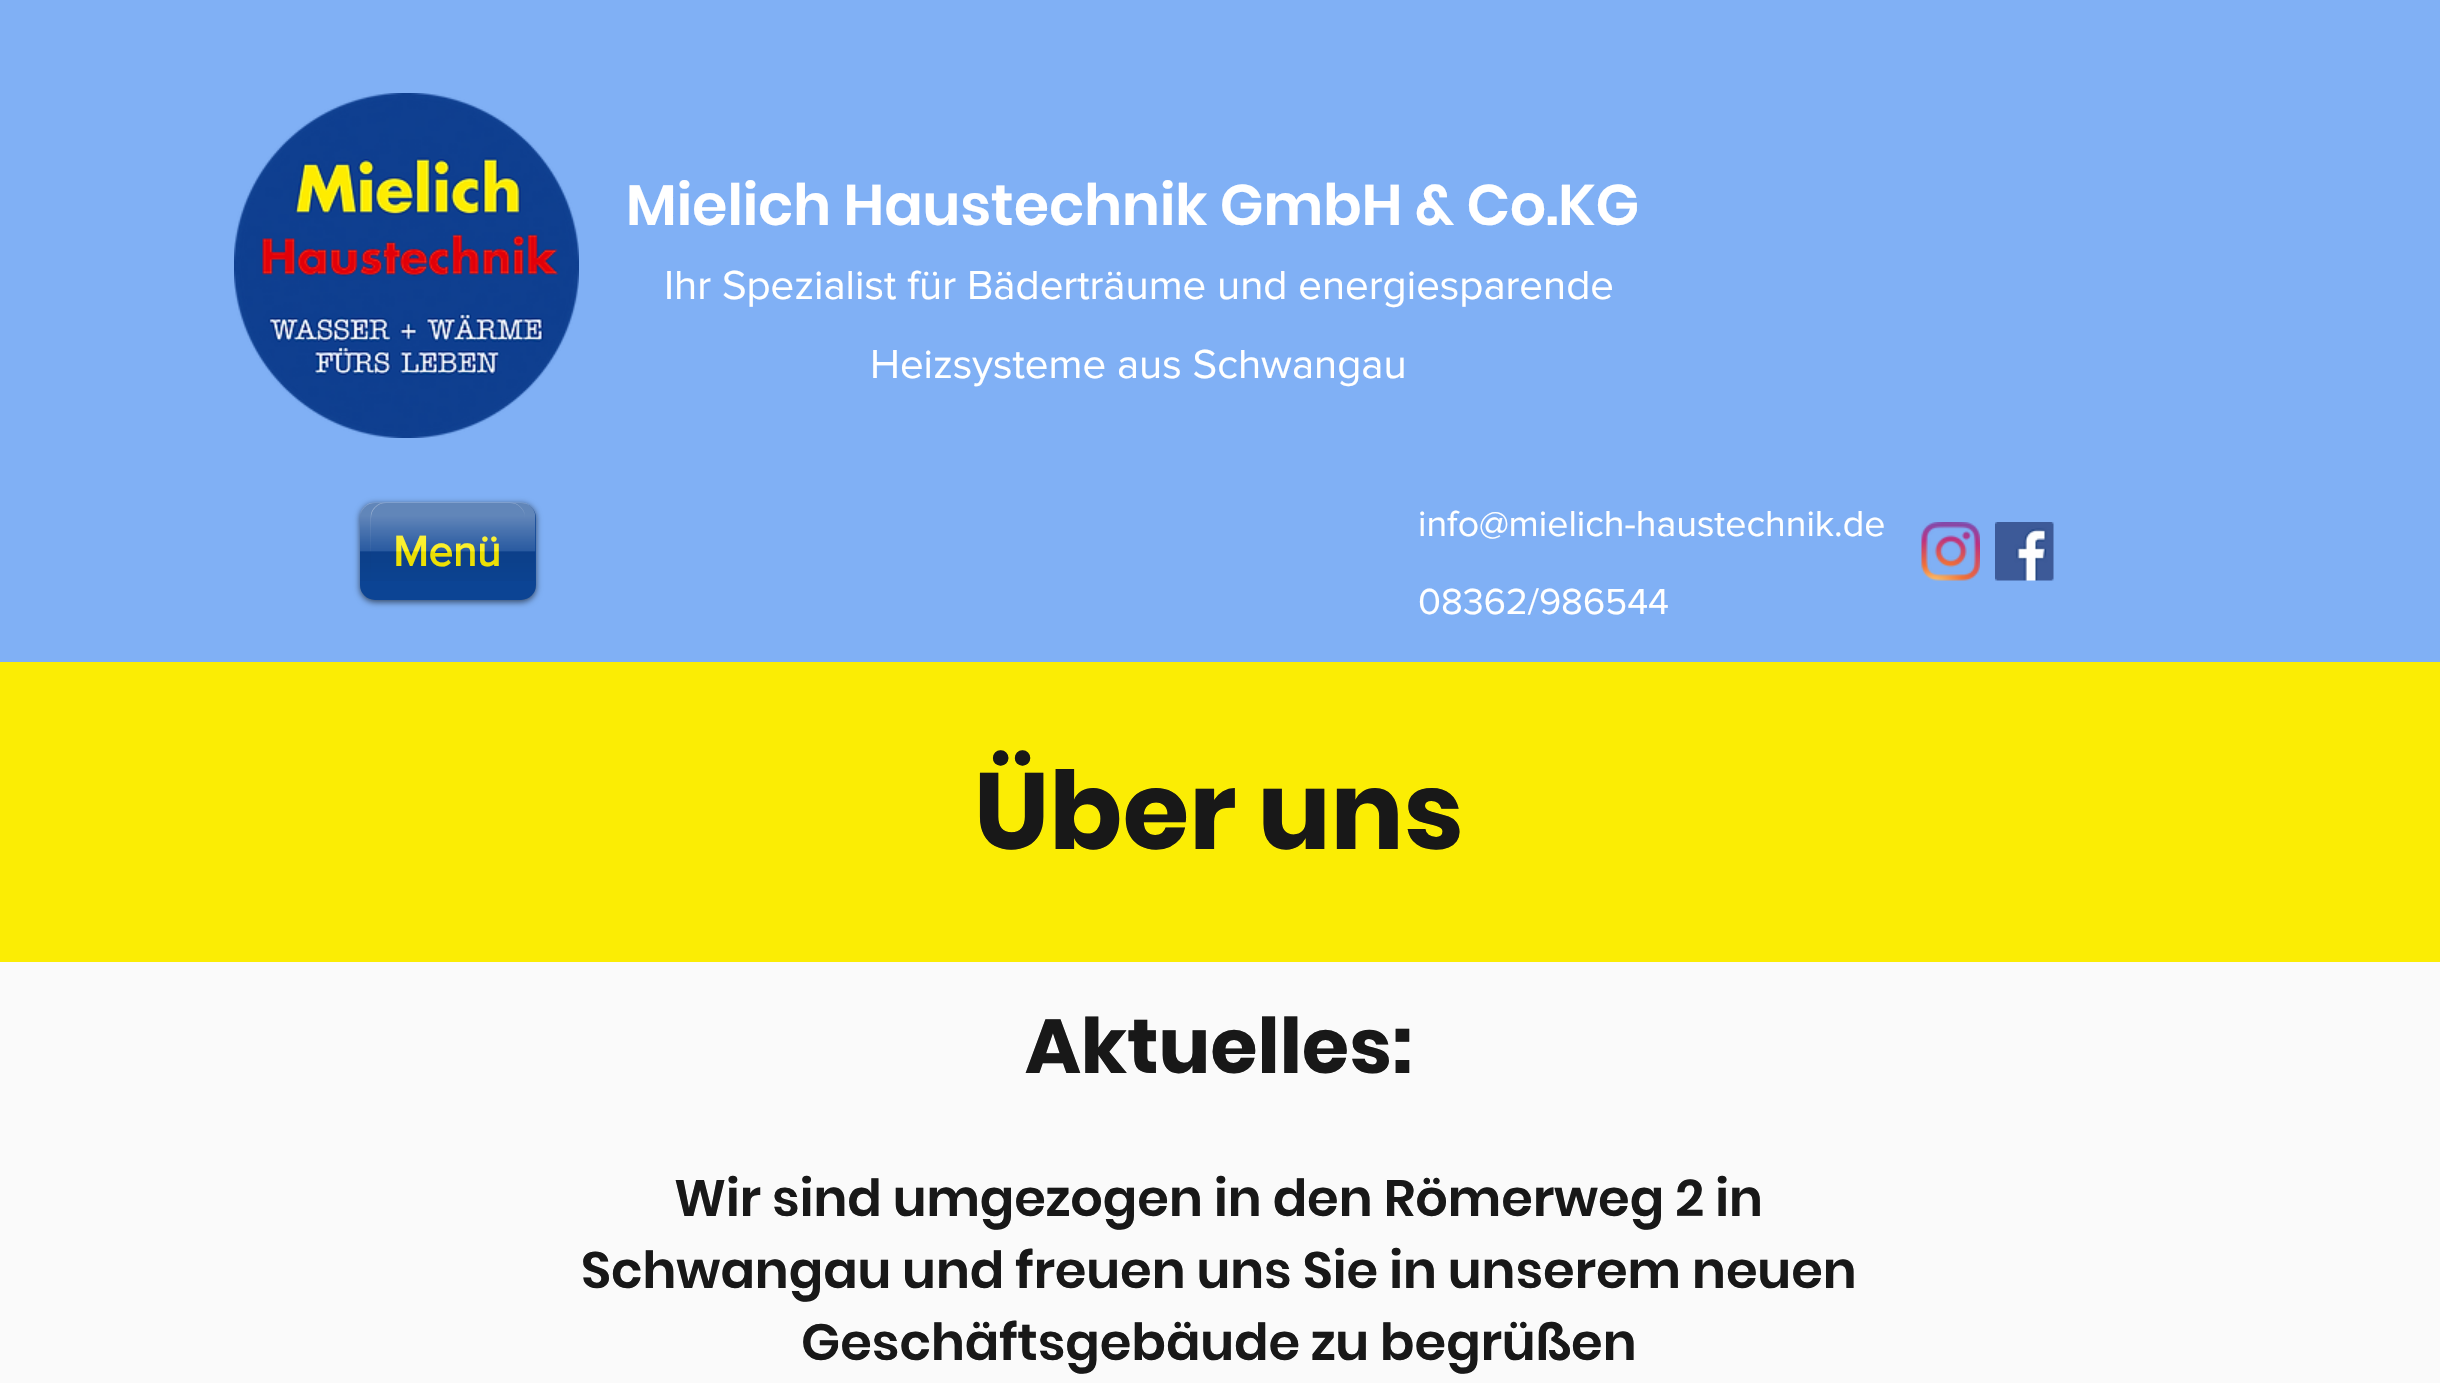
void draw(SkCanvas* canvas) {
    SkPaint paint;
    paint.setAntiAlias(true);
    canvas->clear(0xFF80B0F5);
    canvas->drawImageRect(SkImages::DeferredFromEncodedData(SkData::MakeFromFileName("img1.png")), SkRect::MakeXYWH(234, 93, 345, 345), SkSamplingOptions());
    SkFont font1(fontMgr->matchFamilyStyle("Poppins", SkFontStyle(600, SkFontStyle::kNormal_Width, SkFontStyle::kUpright_Slant)), 57);
    font1.setSubpixel(true);
    paint.setColor(0xFFFFFFFF);
    canvas->drawString("Mielich Haustechnik GmbH & Co.KG", 626, 225, font1, paint);
    SkFont font2(fontMgr->matchFamilyStyle("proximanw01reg", SkFontStyle::Normal()), 42);
    font2.setSubpixel(true);
    canvas->drawString("Ihr Spezialist für Bäderträume und energiesparende", 664, 299, font2, paint);
    canvas->drawString("Heizsysteme aus Schwangau", 870, 378, font2, paint);
    paint.setColor(0x99000000);
    paint.setMaskFilter(SkMaskFilter::MakeBlur(kNormal_SkBlurStyle, 3));
    canvas->drawRoundRect(SkRect::MakeXYWH(360, 504, 176, 98), 15, 15, paint);
    paint.setMaskFilter(nullptr);
    paint.setColor(0xFF0C4494);
    canvas->drawRoundRect(SkRect::MakeXYWH(360, 503, 176, 97), 15, 15, paint);
    canvas->drawImageRect(SkImages::DeferredFromEncodedData(SkData::MakeFromFileName("img2.png")), SkRect::MakeXYWH(360, 502, 176, 79), SkSamplingOptions());
    canvas->drawRoundRect(SkRect::MakeXYWH(371, 503, 154, 97), 15, 15, paint);
    SkFont font3(fontMgr->matchFamilyStyle("proximanw01reg", SkFontStyle::Bold()), 43.5f);
    font3.setSubpixel(true);
    paint.setColor(0xFFFBED04);
    canvas->drawString("Menü", 393, 566, font3, paint);
    canvas->drawImageRect(SkImages::DeferredFromEncodedData(SkData::MakeFromFileName("img3.png")), SkRect::MakeXYWH(370, 502, 155, 79), SkSamplingOptions());
    SkFont font4(fontMgr->matchFamilyStyle("proximanw01reg", SkFontStyle::Normal()), 37.5f);
    font4.setSubpixel(true);
    paint.setColor(0xFFFFFFFF);
    canvas->drawString("info@mielich-haustechnik.de", 1418, 536, font4, paint);
    canvas->drawImageRect(SkImages::DeferredFromEncodedData(SkData::MakeFromFileName("img4.png")), SkRect::MakeXYWH(1921, 522, 59, 59), SkSamplingOptions());
    canvas->drawImageRect(SkImages::DeferredFromEncodedData(SkData::MakeFromFileName("img5.png")), SkRect::MakeXYWH(1995, 522, 59, 59), SkSamplingOptions());
    canvas->drawString("08362/986544", 1418, 614, font4, paint);
    paint.setColor(0xFFFBED04);
    canvas->drawRect(SkRect::MakeXYWH(0, 662, 2440, 300), paint);
    SkFont font5(fontMgr->matchFamilyStyle("Poppins", SkFontStyle::Bold()), 108);
    font5.setSubpixel(true);
    paint.setColor(0xFF181818);
    canvas->drawString("Über uns", 974, 849, font5, paint);
    paint.setColor(0xFFFAFAFA);
    canvas->drawRect(SkRect::MakeXYWH(0, 962, 2440, 421), paint);
    SkFont font6(fontMgr->matchFamilyStyle("Poppins", SkFontStyle::Bold()), 76.5f);
    font6.setSubpixel(true);
    paint.setColor(0xFF181818);
    canvas->drawString("Aktuelles:", 1025, 1073, font6, paint);
    SkFont font7(fontMgr->matchFamilyStyle("Poppins", SkFontStyle(600, SkFontStyle::kNormal_Width, SkFontStyle::kUpright_Slant)), 51);
    font7.setSubpixel(true);
    canvas->drawString("Wir sind umgezogen in den Römerweg 2 in", 674, 1216, font7, paint);
    canvas->drawString("Schwangau und freuen uns Sie in unserem neuen", 581, 1288, font7, paint);
    canvas->drawString("Geschäftsgebäude zu begrüßen", 801, 1360, font7, paint);
}
